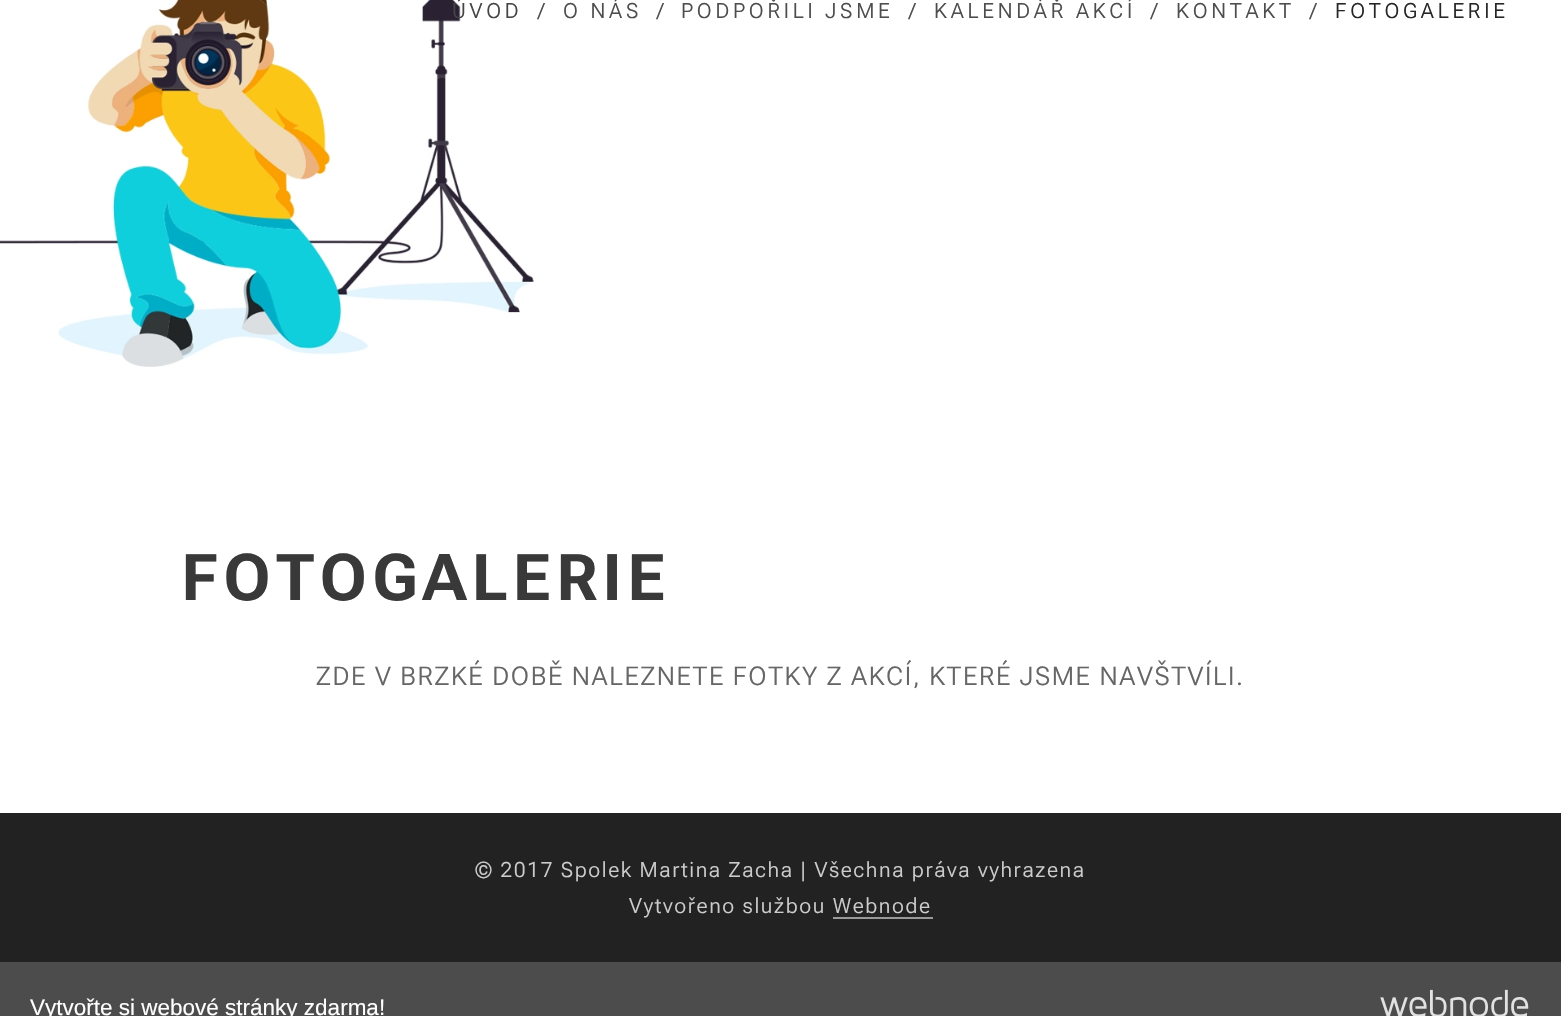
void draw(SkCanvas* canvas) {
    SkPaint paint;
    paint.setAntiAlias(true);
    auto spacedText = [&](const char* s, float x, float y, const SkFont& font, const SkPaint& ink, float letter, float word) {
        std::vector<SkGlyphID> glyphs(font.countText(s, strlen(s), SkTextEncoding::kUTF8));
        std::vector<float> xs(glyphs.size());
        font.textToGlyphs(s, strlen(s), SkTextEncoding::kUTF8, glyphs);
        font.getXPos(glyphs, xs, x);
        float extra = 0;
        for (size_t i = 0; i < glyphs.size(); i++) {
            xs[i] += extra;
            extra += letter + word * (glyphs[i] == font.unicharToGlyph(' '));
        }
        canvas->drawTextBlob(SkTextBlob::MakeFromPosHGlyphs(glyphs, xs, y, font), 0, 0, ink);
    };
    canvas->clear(0xFFFFFFFF);
    canvas->drawImageRect(SkImages::DeferredFromEncodedData(SkData::MakeFromFileName("img1.png")), SkRect::MakeXYWH(0, 0, 534, 367), SkSamplingOptions());
    SkFont font1(fontMgr->matchFamilyStyle("Roboto Flex", SkFontStyle(300, SkFontStyle::kNormal_Width, SkFontStyle::kUpright_Slant)), 21);
    font1.setSubpixel(true);
    paint.setColor(0xFF444445);
    spacedText("ÚVOD", 452, 18, font1, paint, 3.75f, 0);
    paint.setColor(0xFF4D4D4D);
    spacedText("/", 538, 18, font1, paint, 3.75f, 0);
    spacedText("O NÁS", 563, 18, font1, paint, 3.75f, 0);
    spacedText("/", 657, 18, font1, paint, 3.75f, 0);
    spacedText("PODPOŘILI JSME", 681, 18, font1, paint, 3.75f, 0);
    spacedText("/", 909, 18, font1, paint, 3.75f, 0);
    spacedText("KALENDÁŘ AKCÍ", 934, 18, font1, paint, 3.75f, 0);
    spacedText("/", 1151, 18, font1, paint, 3.75f, 0);
    spacedText("KONTAKT", 1176, 18, font1, paint, 3.75f, 0);
    spacedText("/", 1310, 18, font1, paint, 3.75f, 0);
    paint.setColor(0xFF262626);
    spacedText("FOTOGALERIE", 1335, 18, font1, paint, 3.75f, 0);
    SkFont font2(fontMgr->matchFamilyStyle("Roboto Flex", SkFontStyle::Bold()), 64.5f);
    font2.setSubpixel(true);
    paint.setColor(0xFF393939);
    spacedText("FOTOGALERIE", 181, 600, font2, paint, 5.25f, 0);
    SkFont font3(fontMgr->matchFamilyStyle("Roboto Flex", SkFontStyle(300, SkFontStyle::kNormal_Width, SkFontStyle::kUpright_Slant)), 25.8f);
    font3.setSubpixel(true);
    paint.setColor(0xFF666666);
    spacedText("ZDE V BRZKÉ DOBĚ NALEZNETE FOTKY Z AKCÍ, KTERÉ JSME NAVŠTVÍLI.", 316, 685, font3, paint, 1.6f, 0);
    paint.setColor(0xFF222222);
    canvas->drawRect(SkRect::MakeXYWH(0, 813, 1561, 149), paint);
    paint.setColor(0xFFCCCCCC);
    spacedText("© 2017 Spolek Martina Zacha | Všechna práva vyhrazena", 475, 877, font1, paint, 1.6f, 0);
    spacedText("Vytvořeno službou Webnode", 629, 913, font1, paint, 1.6f, 0);
    paint.setColor(0xFF999999);
    canvas->drawRect(SkRect::MakeXYWH(833, 917, 100, 2), paint);
    paint.setColor(0xFF4C4C4C);
    canvas->drawRect(SkRect::MakeXYWH(0, 962, 1561, 54), paint);
    SkFont font4(fontMgr->matchFamilyStyle("Liberation Sans", SkFontStyle::Normal()), 22.5f);
    font4.setSubpixel(true);
    paint.setColor(0xFFFFFFFF);
    canvas->drawString("Vytvořte si webové stránky zdarma!", 30, 1015, font4, paint);
    canvas->drawImageRect(SkImages::DeferredFromEncodedData(SkData::MakeFromFileName("img2.png")), SkRect::MakeXYWH(1380, 989, 149, 27), SkSamplingOptions());
}
